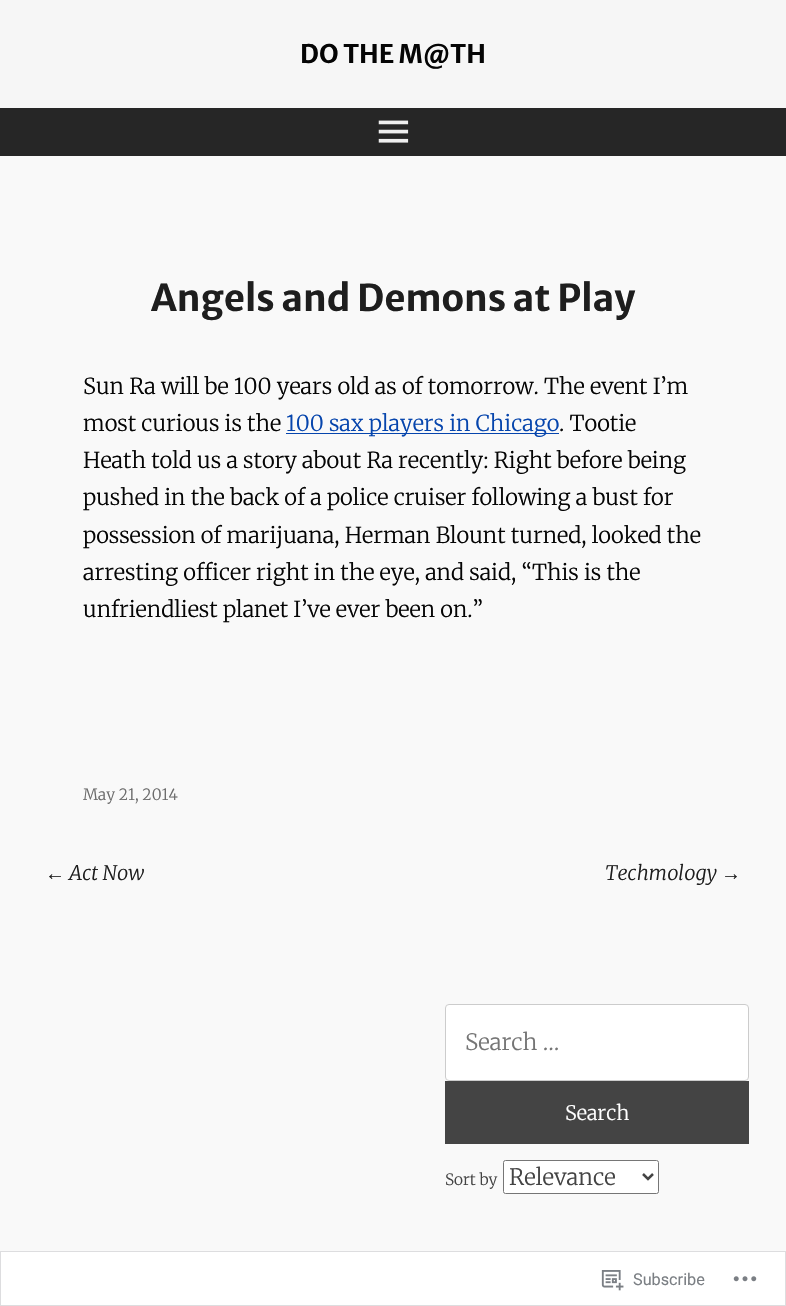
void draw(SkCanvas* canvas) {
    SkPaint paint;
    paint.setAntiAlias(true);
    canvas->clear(0xFFF9F9F9);
    paint.setColor(0xFFF6F6F6);
    canvas->drawRect(SkRect::MakeXYWH(0, 0, 786, 108), paint);
    SkFont font1(fontMgr->matchFamilyStyle("Merriweather Sans", SkFontStyle::Bold()), 25.5f);
    font1.setSubpixel(true);
    paint.setColor(0xFF050505);
    canvas->drawString("DO THE M@TH", 300, 63, font1, paint);
    paint.setColor(0xFF262626);
    canvas->drawRect(SkRect::MakeXYWH(0, 108, 786, 48), paint);
    canvas->drawImageRect(SkImages::DeferredFromEncodedData(SkData::MakeFromFileName("img1.png")), SkRect::MakeXYWH(378, 120, 31, 23), SkSamplingOptions());
    SkFont font2(fontMgr->matchFamilyStyle("Merriweather Sans", SkFontStyle::Bold()), 36.7f);
    font2.setSubpixel(true);
    paint.setColor(0xFF1E1E1E);
    canvas->drawString("Angels and Demons at Play", 151, 311, font2, paint);
    SkFont font3(fontMgr->matchFamilyStyle("Merriweather", SkFontStyle(300, SkFontStyle::kNormal_Width, SkFontStyle::kUpright_Slant)), 22);
    font3.setSubpixel(true);
    paint.setColor(0xFF050505);
    canvas->drawString("Sun Ra will be 100 years old as of tomorrow. The event I’m", 83, 394, font3, paint);
    canvas->drawString("most curious is the", 83, 431, font3, paint);
    paint.setColor(0xFF0645AD);
    canvas->drawRect(SkRect::MakeXYWH(286, 433, 273, 1), paint);
    canvas->drawString("100 sax players in Chicago", 286, 431, font3, paint);
    paint.setColor(0xFF050505);
    canvas->drawString(". Tootie", 559, 431, font3, paint);
    canvas->drawString("Heath told us a story about Ra recently: Right before being", 83, 468, font3, paint);
    canvas->drawString("pushed in the back of a police cruiser following a bust for", 83, 505, font3, paint);
    canvas->drawString("possession of marijuana, Herman Blount turned, looked the", 83, 543, font3, paint);
    canvas->drawString("arresting officer right in the eye, and said, “This is the", 83, 580, font3, paint);
    canvas->drawString("unfriendliest planet I’ve ever been on.”", 83, 617, font3, paint);
    SkFont font4(fontMgr->matchFamilyStyle("Merriweather", SkFontStyle(300, SkFontStyle::kNormal_Width, SkFontStyle::kUpright_Slant)), 15.5f);
    font4.setSubpixel(true);
    paint.setColor(0xFF6B6B6B);
    canvas->drawString("May 21, 2014", 83, 800, font4, paint);
    SkFont font5(fontMgr->matchFamilyStyle("Liberation Serif", SkFontStyle::Italic()), 20);
    font5.setSubpixel(true);
    paint.setColor(0xFF1E1E1E);
    canvas->drawString("←", 45, 880, font5, paint);
    SkFont font6(fontMgr->matchFamilyStyle("Merriweather", SkFontStyle(300, SkFontStyle::kNormal_Width, SkFontStyle::kItalic_Slant)), 20);
    font6.setSubpixel(true);
    canvas->drawString("Act Now", 69, 880, font6, paint);
    canvas->drawString("Techmology", 605, 880, font6, paint);
    canvas->drawString("→", 721, 880, font5, paint);
    paint.setColor(0xFFFFFFFF);
    canvas->drawRoundRect(SkRect::MakeXYWH(445.5f, 1004.5f, 303, 76), 3.5f, 3.5f, paint);
    paint.setStyle(SkPaint::kStroke_Style);
    paint.setStrokeWidth(1);
    paint.setColor(0xFFCCCCCC);
    canvas->drawRoundRect(SkRect::MakeXYWH(445.5f, 1004.5f, 303, 76), 3.5f, 3.5f, paint);
    SkFont font7(fontMgr->matchFamilyStyle("Merriweather", SkFontStyle(300, SkFontStyle::kNormal_Width, SkFontStyle::kUpright_Slant)), 22.5f);
    font7.setSubpixel(true);
    paint.setStyle(SkPaint::kFill_Style);
    paint.setColor(0xFF757575);
    canvas->drawString("Search …", 465, 1050, font7, paint);
    paint.setColor(0xFF444444);
    canvas->drawRect(SkRect::MakeXYWH(445, 1081, 304, 63), paint);
    SkFont font8(fontMgr->matchFamilyStyle("Merriweather", SkFontStyle(300, SkFontStyle::kNormal_Width, SkFontStyle::kUpright_Slant)), 20);
    font8.setSubpixel(true);
    paint.setColor(0xFFFFFFFF);
    canvas->drawString("Search", 565, 1120, font8, paint);
    paint.setColor(0xFF444444);
    canvas->drawString("Sort by", 445, 1185, font4, paint);
    paint.setColor(0xFFFFFFFF);
    canvas->drawRoundRect(SkRect::MakeXYWH(503.5f, 1160.5f, 155, 33), 2, 2, paint);
    paint.setStyle(SkPaint::kStroke_Style);
    paint.setColor(0xFF767676);
    canvas->drawRoundRect(SkRect::MakeXYWH(503.5f, 1160.5f, 155, 33), 2, 2, paint);
    paint.setStrokeWidth(2.5f);
    paint.setColor(0xFF444444);
    canvas->drawPath(SkPathBuilder().moveTo(643, 1174).lineTo(648, 1179).lineTo(653, 1174).detach(), paint);
    paint.setStyle(SkPaint::kFill_Style);
    canvas->drawString("Relevance", 509, 1185, font7, paint);
    paint.setColor(0xFFFFFFFF);
    canvas->drawRect(SkRect::MakeXYWH(0.5f, 1251.5f, 785, 54), paint);
    paint.setStyle(SkPaint::kStroke_Style);
    paint.setStrokeWidth(1);
    paint.setColor(0xFFDDDDDF);
    canvas->drawRect(SkRect::MakeXYWH(0.5f, 1251.5f, 785, 54), paint);
    canvas->drawImageRect(SkImages::DeferredFromEncodedData(SkData::MakeFromFileName("img2.png")), SkRect::MakeXYWH(601, 1270, 23, 21), SkSamplingOptions());
    SkFont font9(fontMgr->matchFamilyStyle("Roboto", SkFontStyle::Normal()), 16.25f);
    font9.setSubpixel(true);
    paint.setStyle(SkPaint::kFill_Style);
    paint.setColor(0xFF7B7F84);
    canvas->drawString("Subscribe", 633, 1285, font9, paint);
    canvas->drawImageRect(SkImages::DeferredFromEncodedData(SkData::MakeFromFileName("img3.png")), SkRect::MakeXYWH(733, 1276, 24, 6), SkSamplingOptions());
}
